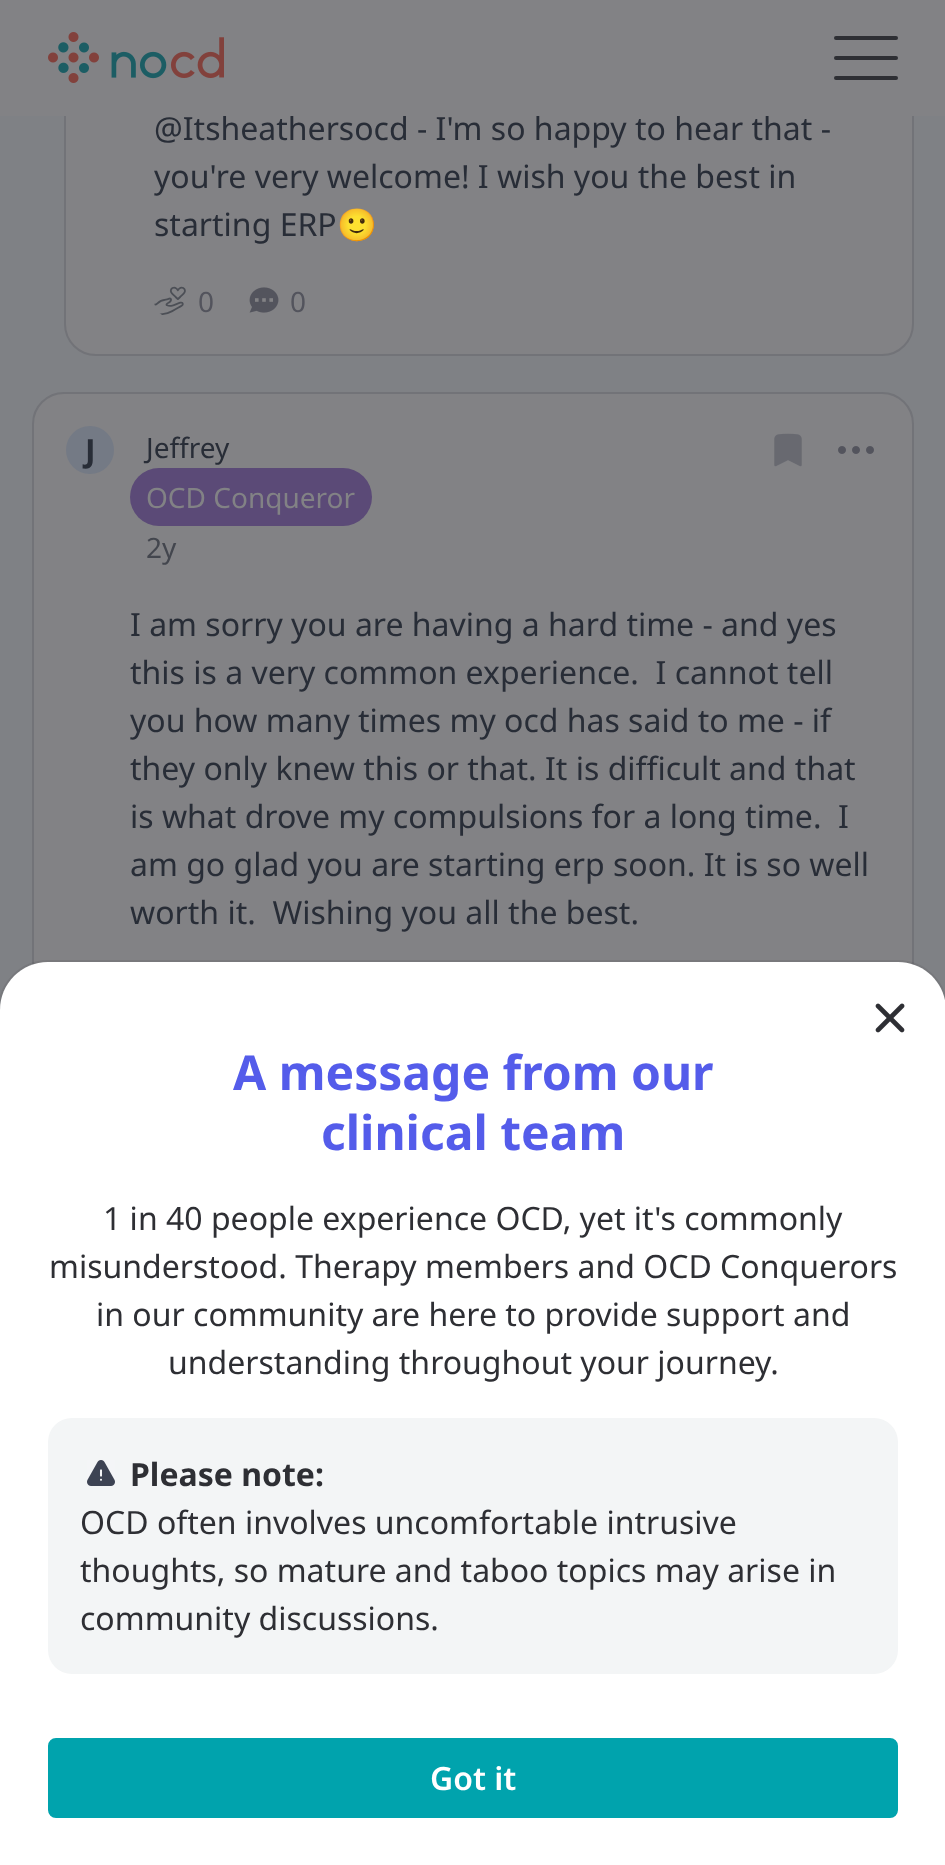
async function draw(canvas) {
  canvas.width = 945;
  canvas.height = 1865;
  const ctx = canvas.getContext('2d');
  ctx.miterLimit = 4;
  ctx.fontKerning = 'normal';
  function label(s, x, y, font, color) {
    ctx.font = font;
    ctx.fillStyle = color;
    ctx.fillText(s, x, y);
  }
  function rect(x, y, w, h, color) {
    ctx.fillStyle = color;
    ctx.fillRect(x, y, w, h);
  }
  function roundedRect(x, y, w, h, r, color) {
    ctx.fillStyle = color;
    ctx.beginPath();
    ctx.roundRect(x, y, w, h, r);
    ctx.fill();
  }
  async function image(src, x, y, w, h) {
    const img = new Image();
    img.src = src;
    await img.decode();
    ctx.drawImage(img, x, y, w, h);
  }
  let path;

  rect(0, 0, 945, 1865, '#7f8185');
  ctx.fillStyle = '#828285';
  ctx.beginPath();
  ctx.roundRect(65, -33, 848, 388, 31);
  ctx.fill();
  ctx.strokeStyle = '#727378';
  ctx.lineWidth = 2;
  ctx.stroke();
  label('@Itsheathersocd - I\'m so happy to hear that -', 154, 140, '32px Noto Sans', '#282d37');
  rect(0, 0, 945, 116, '#828285');
  await image('assets/img1.png', 48, 32, 176, 51);
  roundedRect(834, 36, 64, 4, 2, '#2e2f34');
  roundedRect(834, 56, 64, 4, 2, '#2e2f34');
  roundedRect(834, 76, 64, 4, 2, '#2e2f34');
  label('you\'re very welcome! I wish you the best in', 154, 188, '32px Noto Sans', '#282d37');
  label('starting ERP', 154, 236, '32px Noto Sans', '#282d37');
  label('🙂', 337, 236, '32px Noto Color Emoji', '#282d37');
  await image('assets/img2.png', 154, 286, 32, 29);
  label('0', 198, 312, '28px Noto Sans', '#53545d');
  await image('assets/img3.png', 249, 287, 30, 26);
  label('0', 290, 312, '28px Noto Sans', '#53545d');
  ctx.fillStyle = '#828285';
  ctx.beginPath();
  ctx.roundRect(33, 393, 880, 650, 31);
  ctx.fill();
  ctx.stroke();
  ctx.fillStyle = '#747a85';
  ctx.beginPath();
  ctx.arc(90, 450, 24, 0, 2 * Math.PI);
  ctx.fill();
  label('J', 85, 462, 'bold 32px Noto Sans', '#282d37');
  label('Jeffrey', 146, 458, '28px Noto Sans', '#282d37');
  roundedRect(130, 468, 242, 58, 29, '#5b4a77');
  label('OCD Conqueror', 146, 508, '28px Noto Sans', '#828285');
  label('2y', 146, 558, '28px Noto Sans', '#43464e');
  await image('assets/img4.png', 774, 433, 28, 34);
  await image('assets/img5.png', 838, 446, 36, 8);
  label('I am sorry you are having a hard time - and yes', 130, 636, '32px Noto Sans', '#282d37');
  label('this is a very common experience.  I cannot tell', 130, 684, '32px Noto Sans', '#282d37');
  label('you how many times my ocd has said to me - if', 130, 732, '32px Noto Sans', '#282d37');
  label('they only knew this or that. It is difficult and that', 130, 780, '32px Noto Sans', '#282d37');
  label('is what drove my compulsions for a long time.  I', 130, 828, '32px Noto Sans', '#282d37');
  label('am go glad you are starting erp soon. It is so well', 130, 876, '32px Noto Sans', '#282d37');
  label('worth it.  Wishing you all the best.', 130, 924, '32px Noto Sans', '#282d37');
  path = new Path2D('M48 961H898C925 961 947 983 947 1010V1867H-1V1010C-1 983 21 961 48 961Z');
  ctx.strokeStyle = '#2e2f341a';
  ctx.stroke(path);
  ctx.fillStyle = '#fff';
  path = new Path2D('M48 962H898C924.5 962 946 983.5 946 1010V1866H0V1010C0 983.5 21.5 962 48 962Z');
  ctx.fill(path);
  await image('assets/img6.png', 875, 1003, 30, 30);
  label('A message from our', 233, 1090, 'bold 48px Noto Sans', '#545cea');
  label('clinical team', 321, 1150, 'bold 48px Noto Sans', '#545cea');
  label('1 in 40 people experience OCD, yet it\'s commonly', 103, 1230, '32px Noto Sans', '#2e2f34');
  label('misunderstood. Therapy members and OCD Conquerors', 49, 1278, '32px Noto Sans', '#2e2f34');
  label('in our community are here to provide support and', 96, 1326, '32px Noto Sans', '#2e2f34');
  label('understanding throughout your journey.', 168, 1374, '32px Noto Sans', '#2e2f34');
  roundedRect(48, 1418, 850, 256, 24, '#f3f5f6');
  await image('assets/img7.png', 87, 1460, 28, 26);
  label('Please note:', 130, 1486, 'bold 32px Noto Sans', '#2e2f34');
  label('OCD often involves uncomfortable intrusive', 80, 1534, '32px Noto Sans', '#2e2f34');
  label('thoughts, so mature and taboo topics may arise in', 80, 1582, '32px Noto Sans', '#2e2f34');
  label('community discussions.', 80, 1630, '32px Noto Sans', '#2e2f34');
  ctx.fillStyle = '#00a3ad';
  ctx.beginPath();
  ctx.roundRect(49, 1739, 848, 78, 7);
  ctx.fill();
  ctx.strokeStyle = '#00a3ad';
  ctx.stroke();
  label('Got it', 430, 1790, '600 32px Noto Sans', '#fff');
}

draw(document.querySelector('canvas'));
